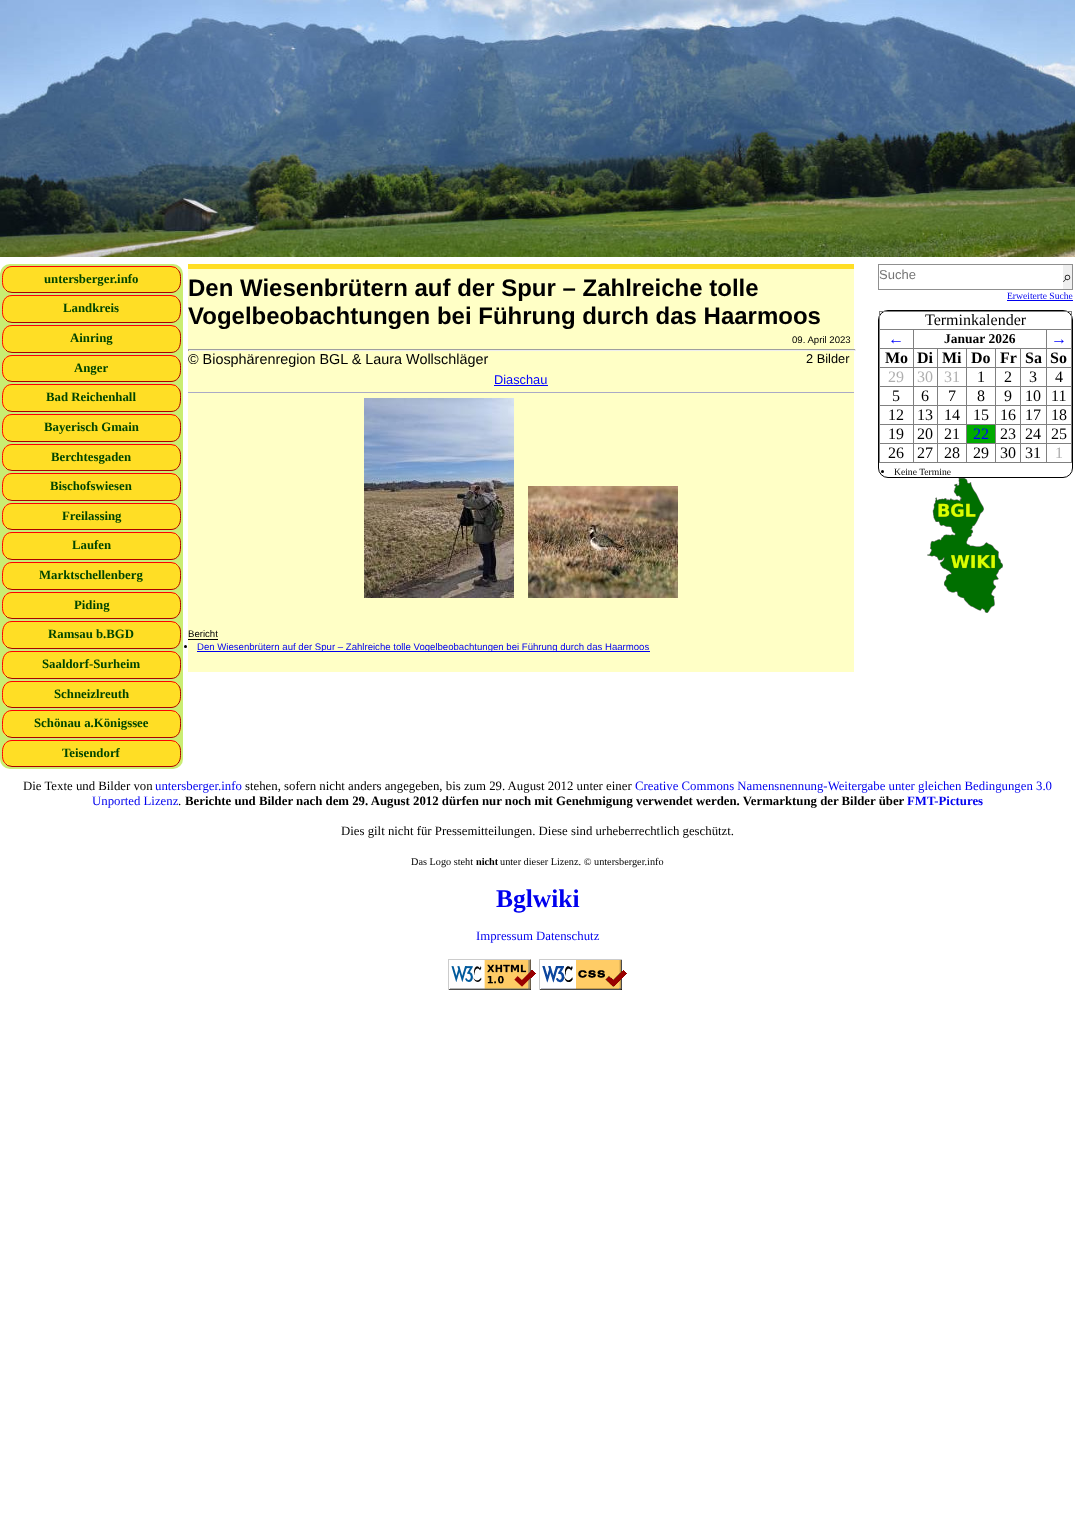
async function draw(canvas) {
  canvas.width = 1075;
  canvas.height = 1523;
  const ctx = canvas.getContext('2d');
  ctx.miterLimit = 4;
  ctx.fontKerning = 'normal';
  function label(s, x, y, font, color) {
    ctx.font = font;
    ctx.fillStyle = color;
    ctx.fillText(s, x, y);
  }
  function rect(x, y, w, h, color) {
    ctx.fillStyle = color;
    ctx.fillRect(x, y, w, h);
  }
  function roundedRect(x, y, w, h, r, color) {
    ctx.fillStyle = color;
    ctx.beginPath();
    ctx.roundRect(x, y, w, h, r);
    ctx.fill();
  }
  async function image(src, x, y, w, h) {
    const img = new Image();
    img.src = src;
    await img.decode();
    ctx.drawImage(img, x, y, w, h);
  }
  let path;

  rect(0, 0, 1075, 1523, '#fff');
  await image('assets/img1.png', 0, 0, 1075, 257);
  roundedRect(0, 264, 183, 505, 10, '#caed72');
  roundedRect(2, 266, 179, 27, 10, '#ffde25');
  path = new Path2D('M177.5 269.5C181 272.5 180.5 277 180.5 281.5C180.5 287.5 177 292.5 171 292.5H12L7.5 291.5L5.5 289.5');
  ctx.strokeStyle = '#a00';
  ctx.stroke(path);
  path = new Path2D('M5.5 289.5C2 286.5 2.5 282 2.5 277.5C2.5 271.5 6 266.5 12 266.5H171L175.5 267.5L177.5 269.5');
  ctx.strokeStyle = '#f00';
  ctx.stroke(path);
  label('untersberger.info', 44, 283, 'bold 12.8px Liberation Serif', '#040');
  roundedRect(2, 295, 179, 28, 10, '#ffde25');
  path = new Path2D('M177.5 298.5C181 301.5 180.5 305.5 180.5 310C180.5 316 178.5 322.5 171 322.5H12L7.5 321.5L5.5 319.5');
  ctx.strokeStyle = '#a00';
  ctx.stroke(path);
  path = new Path2D('M5.5 319.5C2 316.5 2.5 312.5 2.5 308C2.5 302 4.5 295.5 12 295.5H171L175.5 296.5L177.5 298.5');
  ctx.strokeStyle = '#f00';
  ctx.stroke(path);
  label('Landkreis', 63, 312, 'bold 12.8px Liberation Serif', '#040');
  roundedRect(2, 325, 179, 28, 10, '#ffde25');
  path = new Path2D('M177.5 328.5C181 331.5 180.5 335.5 180.5 340C180.5 346 178.5 352.5 171 352.5H12L7.5 351.5L5.5 349.5');
  ctx.strokeStyle = '#a00';
  ctx.stroke(path);
  path = new Path2D('M5.5 349.5C2 346.5 2.5 342.5 2.5 338C2.5 332 4.5 325.5 12 325.5H171L175.5 326.5L177.5 328.5');
  ctx.strokeStyle = '#f00';
  ctx.stroke(path);
  label('Ainring', 70, 342, 'bold 12.8px Liberation Serif', '#040');
  roundedRect(2, 355, 179, 27, 10, '#ffde25');
  path = new Path2D('M177.5 358.5C181 361.5 180.5 366 180.5 370.5C180.5 376.5 177 381.5 171 381.5H12L7.5 380.5L5.5 378.5');
  ctx.strokeStyle = '#a00';
  ctx.stroke(path);
  path = new Path2D('M5.5 378.5C2 375.5 2.5 371 2.5 366.5C2.5 360.5 6 355.5 12 355.5H171L175.5 356.5L177.5 358.5');
  ctx.strokeStyle = '#f00';
  ctx.stroke(path);
  label('Anger', 74, 372, 'bold 12.8px Liberation Serif', '#040');
  roundedRect(2, 384, 179, 28, 10, '#ffde25');
  path = new Path2D('M177.5 387.5C181 390.5 180.5 394.5 180.5 399C180.5 405 178.5 411.5 171 411.5H12L7.5 410.5L5.5 408.5');
  ctx.strokeStyle = '#a00';
  ctx.stroke(path);
  path = new Path2D('M5.5 408.5C2 405.5 2.5 401.5 2.5 397C2.5 391 4.5 384.5 12 384.5H171L175.5 385.5L177.5 387.5');
  ctx.strokeStyle = '#f00';
  ctx.stroke(path);
  label('Bad Reichenhall', 46, 401, 'bold 12.8px Liberation Serif', '#040');
  roundedRect(2, 414, 179, 28, 10, '#ffde25');
  path = new Path2D('M177.5 417.5C181 420.5 180.5 424.5 180.5 429C180.5 435 178.5 441.5 171 441.5H12L7.5 440.5L5.5 438.5');
  ctx.strokeStyle = '#a00';
  ctx.stroke(path);
  path = new Path2D('M5.5 438.5C2 435.5 2.5 431.5 2.5 427C2.5 421 4.5 414.5 12 414.5H171L175.5 415.5L177.5 417.5');
  ctx.strokeStyle = '#f00';
  ctx.stroke(path);
  label('Bayerisch Gmain', 44, 431, 'bold 12.8px Liberation Serif', '#040');
  roundedRect(2, 444, 179, 27, 10, '#ffde25');
  path = new Path2D('M177.5 447.5C181 450.5 180.5 455 180.5 459.5C180.5 465.5 177 470.5 171 470.5H12L7.5 469.5L5.5 467.5');
  ctx.strokeStyle = '#a00';
  ctx.stroke(path);
  path = new Path2D('M5.5 467.5C2 464.5 2.5 460 2.5 455.5C2.5 449.5 6 444.5 12 444.5H171L175.5 445.5L177.5 447.5');
  ctx.strokeStyle = '#f00';
  ctx.stroke(path);
  label('Berchtesgaden', 51, 461, 'bold 12.8px Liberation Serif', '#040');
  roundedRect(2, 473, 179, 28, 10, '#ffde25');
  path = new Path2D('M177.5 476.5C181 479.5 180.5 483.5 180.5 488C180.5 494 178.5 500.5 171 500.5H12L7.5 499.5L5.5 497.5');
  ctx.strokeStyle = '#a00';
  ctx.stroke(path);
  path = new Path2D('M5.5 497.5C2 494.5 2.5 490.5 2.5 486C2.5 480 4.5 473.5 12 473.5H171L175.5 474.5L177.5 476.5');
  ctx.strokeStyle = '#f00';
  ctx.stroke(path);
  label('Bischofswiesen', 50, 490, 'bold 12.8px Liberation Serif', '#040');
  roundedRect(2, 503, 179, 27, 10, '#ffde25');
  path = new Path2D('M177.5 506.5C181 509.5 180.5 514 180.5 518.5C180.5 524.5 177 529.5 171 529.5H12L7.5 528.5L5.5 526.5');
  ctx.strokeStyle = '#a00';
  ctx.stroke(path);
  path = new Path2D('M5.5 526.5C2 523.5 2.5 519 2.5 514.5C2.5 508.5 6 503.5 12 503.5H171L175.5 504.5L177.5 506.5');
  ctx.strokeStyle = '#f00';
  ctx.stroke(path);
  label('Freilassing', 62, 520, 'bold 12.8px Liberation Serif', '#040');
  roundedRect(2, 532, 179, 28, 10, '#ffde25');
  path = new Path2D('M177.5 535.5C181 538.5 180.5 542.5 180.5 547C180.5 553 178.5 559.5 171 559.5H12L7.5 558.5L5.5 556.5');
  ctx.strokeStyle = '#a00';
  ctx.stroke(path);
  path = new Path2D('M5.5 556.5C2 553.5 2.5 549.5 2.5 545C2.5 539 4.5 532.5 12 532.5H171L175.5 533.5L177.5 535.5');
  ctx.strokeStyle = '#f00';
  ctx.stroke(path);
  label('Laufen', 72, 549, 'bold 12.8px Liberation Serif', '#040');
  roundedRect(2, 562, 179, 28, 10, '#ffde25');
  path = new Path2D('M177.5 565.5C181 568.5 180.5 572.5 180.5 577C180.5 583 178.5 589.5 171 589.5H12L7.5 588.5L5.5 586.5');
  ctx.strokeStyle = '#a00';
  ctx.stroke(path);
  path = new Path2D('M5.5 586.5C2 583.5 2.5 579.5 2.5 575C2.5 569 4.5 562.5 12 562.5H171L175.5 563.5L177.5 565.5');
  ctx.strokeStyle = '#f00';
  ctx.stroke(path);
  label('Marktschellenberg', 39, 579, 'bold 12.8px Liberation Serif', '#040');
  roundedRect(2, 592, 179, 27, 10, '#ffde25');
  path = new Path2D('M177.5 595.5C181 598.5 180.5 603 180.5 607.5C180.5 613.5 177 618.5 171 618.5H12L7.5 617.5L5.5 615.5');
  ctx.strokeStyle = '#a00';
  ctx.stroke(path);
  path = new Path2D('M5.5 615.5C2 612.5 2.5 608 2.5 603.5C2.5 597.5 6 592.5 12 592.5H171L175.5 593.5L177.5 595.5');
  ctx.strokeStyle = '#f00';
  ctx.stroke(path);
  label('Piding', 74, 609, 'bold 12.8px Liberation Serif', '#040');
  roundedRect(2, 621, 179, 28, 10, '#ffde25');
  path = new Path2D('M177.5 624.5C181 627.5 180.5 631.5 180.5 636C180.5 642 178.5 648.5 171 648.5H12L7.5 647.5L5.5 645.5');
  ctx.strokeStyle = '#a00';
  ctx.stroke(path);
  path = new Path2D('M5.5 645.5C2 642.5 2.5 638.5 2.5 634C2.5 628 4.5 621.5 12 621.5H171L175.5 622.5L177.5 624.5');
  ctx.strokeStyle = '#f00';
  ctx.stroke(path);
  label('Ramsau b.BGD', 48, 638, 'bold 12.8px Liberation Serif', '#040');
  roundedRect(2, 651, 179, 28, 10, '#ffde25');
  path = new Path2D('M177.5 654.5C181 657.5 180.5 661.5 180.5 666C180.5 672 178.5 678.5 171 678.5H12L7.5 677.5L5.5 675.5');
  ctx.strokeStyle = '#a00';
  ctx.stroke(path);
  path = new Path2D('M5.5 675.5C2 672.5 2.5 668.5 2.5 664C2.5 658 4.5 651.5 12 651.5H171L175.5 652.5L177.5 654.5');
  ctx.strokeStyle = '#f00';
  ctx.stroke(path);
  label('Saaldorf-Surheim', 42, 668, 'bold 12.8px Liberation Serif', '#040');
  roundedRect(2, 681, 179, 27, 10, '#ffde25');
  path = new Path2D('M177.5 684.5C181 687.5 180.5 692 180.5 696.5C180.5 702.5 177 707.5 171 707.5H12L7.5 706.5L5.5 704.5');
  ctx.strokeStyle = '#a00';
  ctx.stroke(path);
  path = new Path2D('M5.5 704.5C2 701.5 2.5 697 2.5 692.5C2.5 686.5 6 681.5 12 681.5H171L175.5 682.5L177.5 684.5');
  ctx.strokeStyle = '#f00';
  ctx.stroke(path);
  label('Schneizlreuth', 54, 698, 'bold 12.8px Liberation Serif', '#040');
  roundedRect(2, 710, 179, 28, 10, '#ffde25');
  path = new Path2D('M177.5 713.5C181 716.5 180.5 720.5 180.5 725C180.5 731 178.5 737.5 171 737.5H12L7.5 736.5L5.5 734.5');
  ctx.strokeStyle = '#a00';
  ctx.stroke(path);
  path = new Path2D('M5.5 734.5C2 731.5 2.5 727.5 2.5 723C2.5 717 4.5 710.5 12 710.5H171L175.5 711.5L177.5 713.5');
  ctx.strokeStyle = '#f00';
  ctx.stroke(path);
  label('Schönau a.Königssee', 34, 727, 'bold 12.8px Liberation Serif', '#040');
  roundedRect(2, 740, 179, 27, 10, '#ffde25');
  path = new Path2D('M177.5 743.5C181 746.5 180.5 751 180.5 755.5C180.5 761.5 177 766.5 171 766.5H12L7.5 765.5L5.5 763.5');
  ctx.strokeStyle = '#a00';
  ctx.stroke(path);
  path = new Path2D('M5.5 763.5C2 760.5 2.5 756 2.5 751.5C2.5 745.5 6 740.5 12 740.5H171L175.5 741.5L177.5 743.5');
  ctx.strokeStyle = '#f00';
  ctx.stroke(path);
  label('Teisendorf', 62, 757, 'bold 12.8px Liberation Serif', '#040');
  rect(188, 264, 666, 5, '#ffde25');
  rect(188, 269, 666, 403, '#ffffc6');
  rect(188, 392, 666, 1, '#aaaac6');
  label('Den Wiesenbrütern auf der Spur – Zahlreiche tolle', 188, 296, 'bold 24px Liberation Sans', '#000');
  label('Vogelbeobachtungen bei Führung durch das Haarmoos', 188, 324, 'bold 24px Liberation Sans', '#000');
  label('09. April 2023', 792, 343, '9.6px Liberation Sans', '#000');
  rect(188, 349, 668, 1, '#9f9f9f');
  rect(855, 349, 1, 2, '#eee');
  rect(188, 350, 668, 1, '#eee');
  rect(188, 349, 1, 2, '#9f9f9f');
  label('© Biosphärenregion BGL & Laura Wollschläger', 188, 364, '14.4px Liberation Sans', '#000');
  label('2 Bilder', 806, 363, '12.8px Liberation Sans', '#000');
  label('Diaschau', 494, 384, '12.8px Liberation Sans', '#00f');
  rect(494, 385, 54, 1, '#00f');
  await image('assets/img2.png', 364, 398, 150, 200);
  await image('assets/img3.png', 528, 486, 150, 112);
  label('Bericht', 188, 637, '9.6px Liberation Sans', '#000');
  rect(188, 639, 30, 1, '#000');
  ctx.beginPath();
  ctx.arc(185.5, 646.5, 1.5, 0, 2 * Math.PI);
  ctx.fill();
  rect(197, 651, 453, 1, '#00e');
  label('Den Wiesenbrütern auf der Spur – Zahlreiche tolle Vogelbeobachtungen bei Führung durch das Haarmoos', 197, 650, '9.6px Liberation Sans', '#00e');
  ctx.strokeStyle = '#8f8f8f';
  ctx.strokeRect(878.5, 264.5, 194, 25);
  label('Suche', 879, 279, '13px Liberation Sans', '#757575');
  rect(1063, 265, 9, 24, '#efefef');
  label('⌕', 1063, 282, '16px FreeSerif', '#000');
  label('Erweiterte Suche', 1007, 299, '9.6px Liberation Serif', '#00e');
  rect(1007, 300, 66, 1, '#00e');
  ctx.beginPath();
  ctx.roundRect(878.5, 310.5, 194, 167, 9.5);
  ctx.strokeStyle = '#000';
  ctx.stroke();
  rect(879, 311, 193, 1, '#808080');
  rect(1071, 311, 1, 152, '#808080');
  rect(879, 462, 193, 1, '#808080');
  rect(879, 311, 1, 152, '#808080');
  label('Terminkalender', 925, 325, '16px Liberation Serif', '#000');
  rect(1046, 329, 26, 1, '#808080');
  rect(1046, 348, 26, 1, '#808080');
  rect(1046, 367, 26, 1, '#808080');
  rect(1046, 386, 26, 1, '#808080');
  rect(1046, 405, 26, 1, '#808080');
  rect(1046, 424, 26, 1, '#808080');
  rect(1046, 443, 26, 1, '#808080');
  rect(1046, 443, 1, 20, '#808080');
  rect(1020, 443, 27, 1, '#808080');
  rect(1046, 424, 1, 20, '#808080');
  rect(1020, 424, 27, 1, '#808080');
  rect(1046, 405, 1, 20, '#808080');
  rect(1020, 405, 27, 1, '#808080');
  rect(1046, 386, 1, 20, '#808080');
  rect(1020, 386, 27, 1, '#808080');
  rect(1046, 367, 1, 20, '#808080');
  rect(1020, 367, 27, 1, '#808080');
  rect(1046, 348, 1, 20, '#808080');
  rect(1020, 348, 27, 1, '#808080');
  rect(1046, 329, 1, 20, '#808080');
  rect(913, 329, 134, 1, '#808080');
  rect(1020, 443, 1, 20, '#808080');
  rect(995, 443, 26, 1, '#808080');
  rect(1020, 424, 1, 20, '#808080');
  rect(995, 424, 26, 1, '#808080');
  rect(1020, 405, 1, 20, '#808080');
  rect(995, 405, 26, 1, '#808080');
  rect(1020, 386, 1, 20, '#808080');
  rect(995, 386, 26, 1, '#808080');
  rect(1020, 367, 1, 20, '#808080');
  rect(995, 367, 26, 1, '#808080');
  rect(1020, 348, 1, 20, '#808080');
  rect(995, 348, 26, 1, '#808080');
  rect(995, 443, 1, 20, '#808080');
  rect(966, 443, 30, 1, '#808080');
  rect(995, 424, 1, 20, '#808080');
  rect(966, 424, 30, 1, '#808080');
  rect(995, 405, 1, 20, '#808080');
  rect(966, 405, 30, 1, '#808080');
  rect(995, 386, 1, 20, '#808080');
  rect(966, 386, 30, 1, '#808080');
  rect(995, 367, 1, 20, '#808080');
  rect(966, 367, 30, 1, '#808080');
  rect(995, 348, 1, 20, '#808080');
  rect(966, 348, 30, 1, '#808080');
  rect(966, 443, 1, 20, '#808080');
  rect(937, 443, 30, 1, '#808080');
  rect(966, 424, 1, 20, '#808080');
  rect(937, 424, 30, 1, '#808080');
  rect(966, 405, 1, 20, '#808080');
  rect(937, 405, 30, 1, '#808080');
  rect(966, 386, 1, 20, '#808080');
  rect(937, 386, 30, 1, '#808080');
  rect(966, 367, 1, 20, '#808080');
  rect(937, 367, 30, 1, '#808080');
  rect(966, 348, 1, 20, '#808080');
  rect(937, 348, 30, 1, '#808080');
  rect(937, 443, 1, 20, '#808080');
  rect(913, 443, 25, 1, '#808080');
  rect(937, 424, 1, 20, '#808080');
  rect(913, 424, 25, 1, '#808080');
  rect(937, 405, 1, 20, '#808080');
  rect(913, 405, 25, 1, '#808080');
  rect(937, 386, 1, 20, '#808080');
  rect(913, 386, 25, 1, '#808080');
  rect(937, 367, 1, 20, '#808080');
  rect(913, 367, 25, 1, '#808080');
  rect(937, 348, 1, 20, '#808080');
  rect(913, 348, 25, 1, '#808080');
  rect(913, 443, 1, 20, '#808080');
  rect(879, 443, 35, 1, '#808080');
  rect(913, 424, 1, 20, '#808080');
  rect(879, 424, 35, 1, '#808080');
  rect(913, 405, 1, 20, '#808080');
  rect(879, 405, 35, 1, '#808080');
  rect(913, 386, 1, 20, '#808080');
  rect(879, 386, 35, 1, '#808080');
  rect(913, 367, 1, 20, '#808080');
  rect(879, 367, 35, 1, '#808080');
  rect(913, 348, 1, 20, '#808080');
  rect(879, 348, 35, 1, '#808080');
  rect(913, 329, 1, 20, '#808080');
  rect(879, 329, 35, 1, '#808080');
  label('←', 888, 344, 'bold 16px Liberation Serif', '#00f');
  label('Januar 2026', 944, 343, 'bold 13.5px Liberation Serif', '#000');
  label('→', 1051, 344, 'bold 16px Liberation Serif', '#00f');
  label('Mo', 885, 363, 'bold 16px Liberation Serif', '#000');
  label('Di', 917, 363, 'bold 16px Liberation Serif', '#000');
  label('Mi', 942, 363, 'bold 16px Liberation Serif', '#000');
  label('Do', 971, 363, 'bold 16px Liberation Serif', '#000');
  label('Fr', 1000, 363, 'bold 16px Liberation Serif', '#000');
  label('Sa', 1025, 363, 'bold 16px Liberation Serif', '#000');
  label('So', 1050, 363, 'bold 16px Liberation Serif', '#000');
  label('29', 888, 382, '16px Liberation Serif', '#afafaf');
  label('30', 917, 382, '16px Liberation Serif', '#afafaf');
  label('31', 944, 382, '16px Liberation Serif', '#afafaf');
  label('1', 977, 382, '16px Liberation Serif', '#000');
  label('2', 1004, 382, '16px Liberation Serif', '#000');
  label('3', 1029, 382, '16px Liberation Serif', '#000');
  label('4', 1055, 382, '16px Liberation Serif', '#000');
  label('5', 892, 401, '16px Liberation Serif', '#000');
  label('6', 921, 401, '16px Liberation Serif', '#000');
  label('7', 948, 401, '16px Liberation Serif', '#000');
  label('8', 977, 401, '16px Liberation Serif', '#000');
  label('9', 1004, 401, '16px Liberation Serif', '#000');
  label('10', 1025, 401, '16px Liberation Serif', '#000');
  label('11', 1051, 401, '16px Liberation Serif', '#000');
  label('12', 888, 420, '16px Liberation Serif', '#000');
  label('13', 917, 420, '16px Liberation Serif', '#000');
  label('14', 944, 420, '16px Liberation Serif', '#000');
  label('15', 973, 420, '16px Liberation Serif', '#000');
  label('16', 1000, 420, '16px Liberation Serif', '#000');
  label('17', 1025, 420, '16px Liberation Serif', '#000');
  label('18', 1051, 420, '16px Liberation Serif', '#000');
  label('19', 888, 439, '16px Liberation Serif', '#000');
  label('20', 917, 439, '16px Liberation Serif', '#000');
  label('21', 944, 439, '16px Liberation Serif', '#000');
  rect(967, 425, 28, 18, '#0a0');
  label('22', 973, 439, '16px Liberation Serif', '#00f');
  label('23', 1000, 439, '16px Liberation Serif', '#000');
  label('24', 1025, 439, '16px Liberation Serif', '#000');
  label('25', 1051, 439, '16px Liberation Serif', '#000');
  label('26', 888, 458, '16px Liberation Serif', '#000');
  label('27', 917, 458, '16px Liberation Serif', '#000');
  label('28', 944, 458, '16px Liberation Serif', '#000');
  label('29', 973, 458, '16px Liberation Serif', '#000');
  label('30', 1000, 458, '16px Liberation Serif', '#000');
  label('31', 1025, 458, '16px Liberation Serif', '#000');
  label('1', 1055, 458, '16px Liberation Serif', '#afafaf');
  ctx.fillStyle = '#000';
  ctx.beginPath();
  ctx.arc(882.5, 471.5, 1.5, 0, 2 * Math.PI);
  ctx.fill();
  label('Keine Termine', 894, 475, '9.6px Liberation Serif', '#000');
  await image('assets/img4.png', 927, 478, 76, 135);
  label('Die Texte und Bilder von', 23, 790, '12.8px Liberation Serif', '#000');
  label('untersberger.info', 155, 790, '12.8px Liberation Serif', '#00e');
  label('stehen, sofern nicht anders angegeben, bis zum 29. August 2012 unter einer', 245, 790, '12.8px Liberation Serif', '#000');
  label('Creative Commons Namensnennung-Weitergabe unter gleichen Bedingungen 3.0', 635, 790, '12.8px Liberation Serif', '#00e');
  label('Unported Lizenz', 92, 805, '12.8px Liberation Serif', '#00e');
  label('.', 178, 805, '12.8px Liberation Serif', '#000');
  label('Berichte und Bilder nach dem 29. August 2012 dürfen nur noch mit Genehmigung verwendet werden. Vermarktung der Bilder über', 185, 805, 'bold 12.8px Liberation Serif', '#000');
  label('FMT-Pictures', 907, 805, 'bold 12.8px Liberation Serif', '#00e');
  label('Dies gilt nicht für Pressemitteilungen. Diese sind urheberrechtlich geschützt.', 341, 835, '12.8px Liberation Serif', '#000');
  label('Das Logo steht', 411, 865, '10.25px Liberation Serif', '#000');
  label('nicht', 476, 865, 'bold 10.25px Liberation Serif', '#000');
  label('unter dieser Lizenz. © untersberger.info', 500, 865, '10.25px Liberation Serif', '#000');
  label('Bglwiki', 496, 907, 'bold 25.5px Liberation Serif', '#00e');
  label('Impressum Datenschutz', 476, 940, '12.8px Liberation Serif', '#00e');
  await image('assets/img5.png', 448, 959, 88, 31);
  await image('assets/img6.png', 539, 959, 88, 31);
}

draw(document.querySelector('canvas'));
